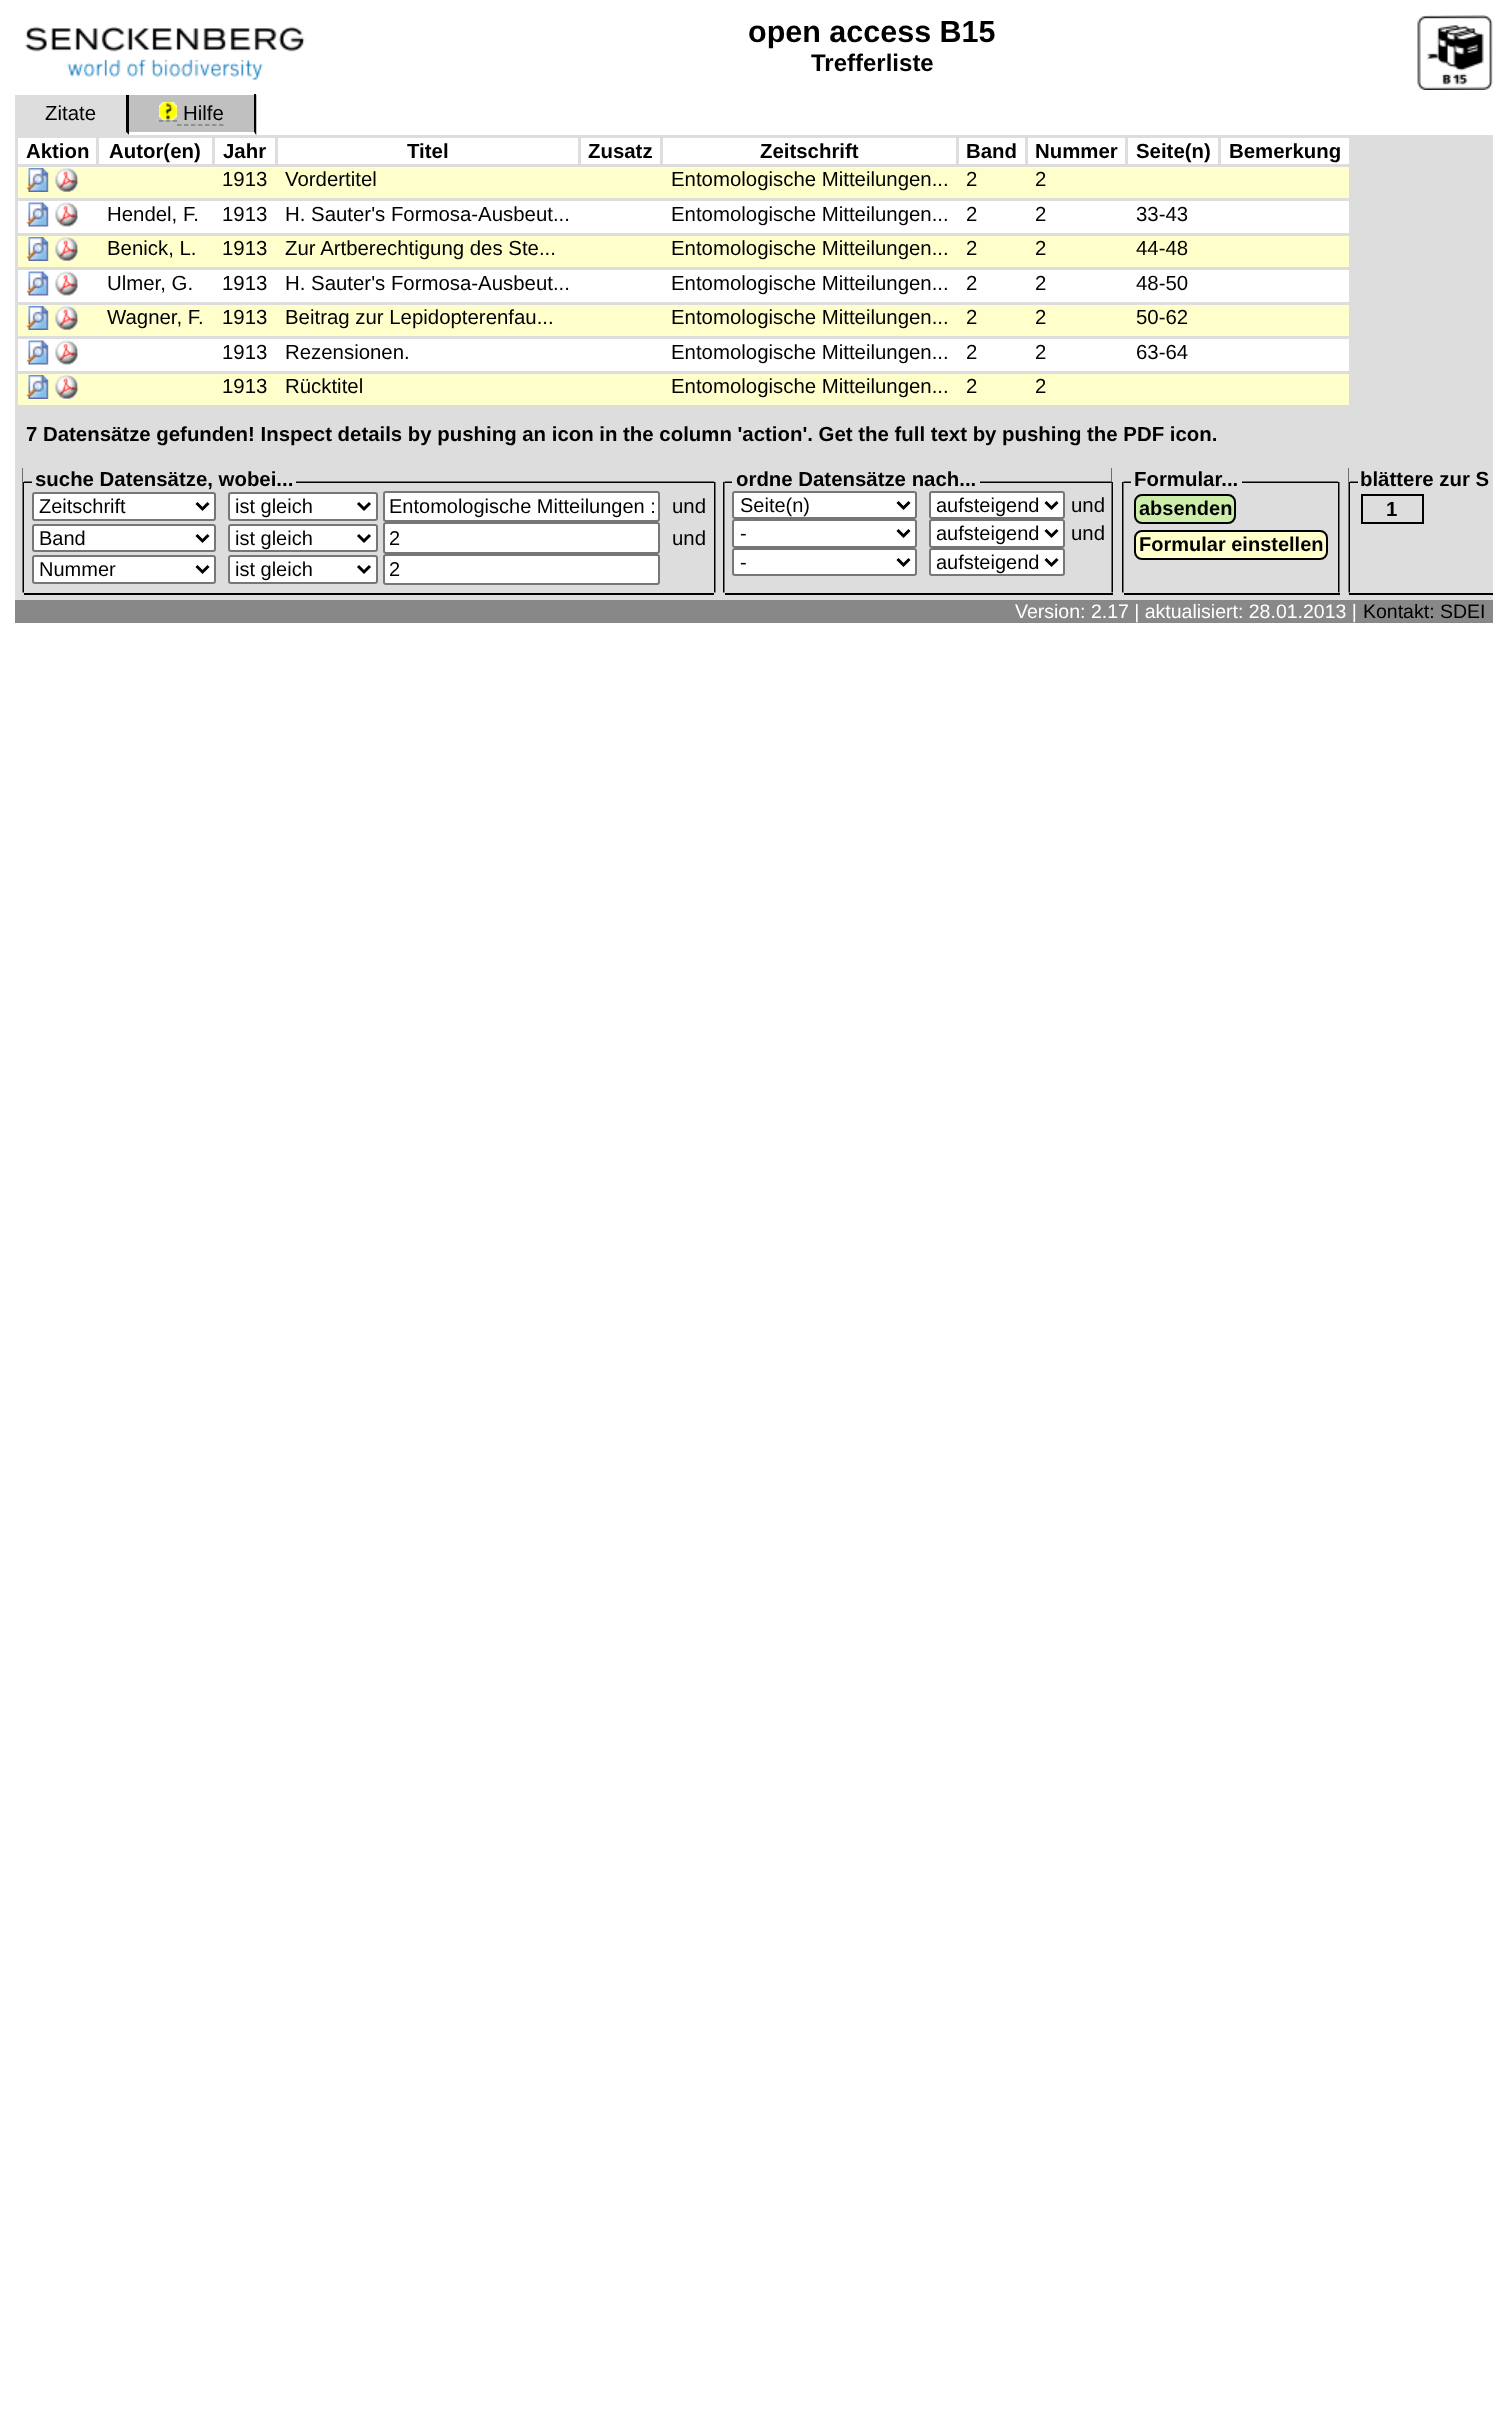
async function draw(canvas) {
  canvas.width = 1507;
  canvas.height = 2431;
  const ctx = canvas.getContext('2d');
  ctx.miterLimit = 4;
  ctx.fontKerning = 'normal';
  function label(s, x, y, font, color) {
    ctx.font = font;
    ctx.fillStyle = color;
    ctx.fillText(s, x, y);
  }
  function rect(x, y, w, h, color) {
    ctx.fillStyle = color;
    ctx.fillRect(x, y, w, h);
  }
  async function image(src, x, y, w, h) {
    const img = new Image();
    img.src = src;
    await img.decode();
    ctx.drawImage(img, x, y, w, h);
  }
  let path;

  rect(0, 0, 1507, 2431, '#fff');
  await image('assets/img1.png', 25, 26, 280, 54);
  label('open access B15', 748, 42, 'bold 30.5px Liberation Sans', '#000');
  label('Trefferliste', 811, 71, 'bold 24px Liberation Sans', '#000');
  await image('assets/img2.png', 1417, 15, 76, 75);
  rect(15, 95, 114, 40, '#ddd');
  ctx.save();
  ctx.beginPath();
  ctx.rect(15, 95, 1478, 40);
  ctx.clip();
  ctx.fillStyle = '#000';
  path = new Path2D('M129 94V135L126 132V94Z');
  ctx.fill(path);
  ctx.restore();
  path = new Path2D('M129 135H15V132H126Z');
  ctx.fill(path);
  label('Zitate', 45, 120, '20.4px Liberation Sans', '#000');
  rect(129, 95, 128, 40, '#c0c0c0');
  ctx.fillStyle = '#000';
  path = new Path2D('M256 94V135L254 132V94Z');
  ctx.fill(path);
  ctx.fillStyle = '#fff';
  path = new Path2D('M256 135H129V132H254Z');
  ctx.fill(path);
  await image('assets/img3.png', 159, 102, 18, 18);
  label('Hilfe', 183, 120, '20.4px Liberation Sans', '#000');
  path = new Path2D('M159 121H163.5M166 121H170M172.5 121H177');
  ctx.strokeStyle = '#808080';
  ctx.lineWidth = 1.5;
  ctx.stroke(path);
  path = new Path2D('M177 125H223.5');
  ctx.setLineDash([4.5, 2.5]);
  ctx.stroke(path);
  rect(15, 135, 1478, 465, '#ddd');
  rect(18, 138, 78, 26, '#fff');
  label('Aktion', 26, 158, 'bold 20.4px Liberation Sans', '#000');
  rect(99, 138, 113, 26, '#fff');
  label('Autor(en)', 109, 158, 'bold 20.4px Liberation Sans', '#000');
  rect(215, 138, 60, 26, '#fff');
  label('Jahr', 223, 158, 'bold 20.4px Liberation Sans', '#000');
  rect(278, 138, 300, 26, '#fff');
  label('Titel', 407, 158, 'bold 20.4px Liberation Sans', '#000');
  rect(581, 138, 79, 26, '#fff');
  label('Zusatz', 588, 158, 'bold 20.4px Liberation Sans', '#000');
  rect(663, 138, 293, 26, '#fff');
  label('Zeitschrift', 760, 158, 'bold 20.4px Liberation Sans', '#000');
  rect(959, 138, 66, 26, '#fff');
  label('Band', 966, 158, 'bold 20.4px Liberation Sans', '#000');
  rect(1028, 138, 97, 26, '#fff');
  label('Nummer', 1035, 158, 'bold 20.4px Liberation Sans', '#000');
  rect(1128, 138, 90, 26, '#fff');
  label('Seite(n)', 1136, 158, 'bold 20.4px Liberation Sans', '#000');
  rect(1221, 138, 128, 26, '#fff');
  label('Bemerkung', 1229, 158, 'bold 20.4px Liberation Sans', '#000');
  rect(18, 167, 1331, 31, '#ffc');
  await image('assets/img4.png', 26, 168, 23, 24);
  await image('assets/img5.png', 55, 168, 23, 24);
  label('1913', 222, 186, '20.4px Liberation Sans', '#000');
  label('Vordertitel', 285, 186, '20.4px Liberation Sans', '#000');
  label('Entomologische Mitteilungen...', 671, 186, '20.4px Liberation Sans', '#000');
  label('2', 966, 186, '20.4px Liberation Sans', '#000');
  label('2', 1035, 186, '20.4px Liberation Sans', '#000');
  rect(18, 201, 1331, 32, '#fff');
  await image('assets/img6.png', 26, 202, 23, 25);
  await image('assets/img7.png', 55, 202, 23, 25);
  label('Hendel, F.', 107, 221, '20.4px Liberation Sans', '#000');
  label('1913', 222, 221, '20.4px Liberation Sans', '#000');
  label('H. Sauter\'s Formosa-Ausbeut...', 285, 221, '20.4px Liberation Sans', '#000');
  label('Entomologische Mitteilungen...', 671, 221, '20.4px Liberation Sans', '#000');
  label('2', 966, 221, '20.4px Liberation Sans', '#000');
  label('2', 1035, 221, '20.4px Liberation Sans', '#000');
  label('33-43', 1136, 221, '20.4px Liberation Sans', '#000');
  rect(18, 236, 1331, 31, '#ffc');
  await image('assets/img4.png', 26, 237, 23, 24);
  await image('assets/img5.png', 55, 237, 23, 24);
  label('Benick, L.', 107, 255, '20.4px Liberation Sans', '#000');
  label('1913', 222, 255, '20.4px Liberation Sans', '#000');
  label('Zur Artberechtigung des Ste...', 285, 255, '20.4px Liberation Sans', '#000');
  label('Entomologische Mitteilungen...', 671, 255, '20.4px Liberation Sans', '#000');
  label('2', 966, 255, '20.4px Liberation Sans', '#000');
  label('2', 1035, 255, '20.4px Liberation Sans', '#000');
  label('44-48', 1136, 255, '20.4px Liberation Sans', '#000');
  rect(18, 270, 1331, 32, '#fff');
  await image('assets/img6.png', 26, 271, 23, 25);
  await image('assets/img8.png', 55, 271, 23, 25);
  label('Ulmer, G.', 107, 290, '20.4px Liberation Sans', '#000');
  label('1913', 222, 290, '20.4px Liberation Sans', '#000');
  label('H. Sauter\'s Formosa-Ausbeut...', 285, 290, '20.4px Liberation Sans', '#000');
  label('Entomologische Mitteilungen...', 671, 290, '20.4px Liberation Sans', '#000');
  label('2', 966, 290, '20.4px Liberation Sans', '#000');
  label('2', 1035, 290, '20.4px Liberation Sans', '#000');
  label('48-50', 1136, 290, '20.4px Liberation Sans', '#000');
  rect(18, 305, 1331, 31, '#ffc');
  await image('assets/img4.png', 26, 306, 23, 24);
  await image('assets/img5.png', 55, 306, 23, 24);
  label('Wagner, F.', 107, 324, '20.4px Liberation Sans', '#000');
  label('1913', 222, 324, '20.4px Liberation Sans', '#000');
  label('Beitrag zur Lepidopterenfau...', 285, 324, '20.4px Liberation Sans', '#000');
  label('Entomologische Mitteilungen...', 671, 324, '20.4px Liberation Sans', '#000');
  label('2', 966, 324, '20.4px Liberation Sans', '#000');
  label('2', 1035, 324, '20.4px Liberation Sans', '#000');
  label('50-62', 1136, 324, '20.4px Liberation Sans', '#000');
  rect(18, 339, 1331, 32, '#fff');
  await image('assets/img6.png', 26, 340, 23, 25);
  await image('assets/img7.png', 55, 340, 23, 25);
  label('1913', 222, 359, '20.4px Liberation Sans', '#000');
  label('Rezensionen.', 285, 359, '20.4px Liberation Sans', '#000');
  label('Entomologische Mitteilungen...', 671, 359, '20.4px Liberation Sans', '#000');
  label('2', 966, 359, '20.4px Liberation Sans', '#000');
  label('2', 1035, 359, '20.4px Liberation Sans', '#000');
  label('63-64', 1136, 359, '20.4px Liberation Sans', '#000');
  rect(18, 374, 1331, 31, '#ffc');
  await image('assets/img4.png', 26, 375, 23, 24);
  await image('assets/img5.png', 55, 375, 23, 24);
  label('1913', 222, 393, '20.4px Liberation Sans', '#000');
  label('Rücktitel', 285, 393, '20.4px Liberation Sans', '#000');
  label('Entomologische Mitteilungen...', 671, 393, '20.4px Liberation Sans', '#000');
  label('2', 966, 393, '20.4px Liberation Sans', '#000');
  label('2', 1035, 393, '20.4px Liberation Sans', '#000');
  label('7 Datensätze gefunden! Inspect details by pushing an icon in the column \'action\'. Get the full text by pushing the PDF icon.', 26, 441, 'bold 20.4px Liberation Sans', '#000');
  await image('assets/img9.png', 22, 468, 2, 125);
  rect(23, 468, 1, 14, '#ddd');
  await image('assets/img10.png', 24, 481, 690, 2);
  rect(24, 593, 690, 2, '#000');
  rect(32, 481, 264, 2, '#ddd');
  label('suche Datensätze, wobei...', 35, 486, 'bold 20.4px Liberation Sans', '#000');
  ctx.fillStyle = '#fff';
  ctx.beginPath();
  ctx.roundRect(33, 493, 182, 27, 2);
  ctx.fill();
  ctx.strokeStyle = '#767676';
  ctx.lineWidth = 2;
  ctx.setLineDash([]);
  ctx.stroke();
  path = new Path2D('M196.5 503L202.5 509L208.5 503');
  ctx.strokeStyle = '#000';
  ctx.lineWidth = 3;
  ctx.stroke(path);
  label('Zeitschrift', 39, 513, '20px Liberation Sans', '#000');
  ctx.fillStyle = '#fff';
  ctx.beginPath();
  ctx.roundRect(229, 493, 148, 27, 2);
  ctx.fill();
  ctx.strokeStyle = '#767676';
  ctx.lineWidth = 2;
  ctx.stroke();
  path = new Path2D('M358 503L364 509L370 503');
  ctx.strokeStyle = '#000';
  ctx.lineWidth = 3;
  ctx.stroke(path);
  label('ist gleich', 235, 513, '20px Liberation Sans', '#000');
  ctx.fillStyle = '#fff';
  ctx.beginPath();
  ctx.roundRect(384, 492, 275, 29, 2);
  ctx.fill();
  ctx.strokeStyle = '#767676';
  ctx.lineWidth = 2;
  ctx.stroke();
  label('Entomologische Mitteilungen :', 389, 513, '20px Liberation Sans', '#000');
  label('und', 672, 513, '20.4px Liberation Sans', '#000');
  ctx.fillStyle = '#fff';
  ctx.beginPath();
  ctx.roundRect(33, 525, 182, 26, 2);
  ctx.fill();
  ctx.stroke();
  path = new Path2D('M196.5 535L202.5 541L208.5 535');
  ctx.strokeStyle = '#000';
  ctx.lineWidth = 3;
  ctx.stroke(path);
  label('Band', 39, 545, '20px Liberation Sans', '#000');
  ctx.fillStyle = '#fff';
  ctx.beginPath();
  ctx.roundRect(229, 525, 148, 26, 2);
  ctx.fill();
  ctx.strokeStyle = '#767676';
  ctx.lineWidth = 2;
  ctx.stroke();
  path = new Path2D('M358 535L364 541L370 535');
  ctx.strokeStyle = '#000';
  ctx.lineWidth = 3;
  ctx.stroke(path);
  label('ist gleich', 235, 545, '20px Liberation Sans', '#000');
  ctx.fillStyle = '#fff';
  ctx.beginPath();
  ctx.roundRect(384, 523, 275, 30, 2);
  ctx.fill();
  ctx.strokeStyle = '#767676';
  ctx.lineWidth = 2;
  ctx.stroke();
  label('2', 389, 545, '20px Liberation Sans', '#000');
  label('und', 672, 545, '20.4px Liberation Sans', '#000');
  ctx.fillStyle = '#fff';
  ctx.beginPath();
  ctx.roundRect(33, 556, 182, 27, 2);
  ctx.fill();
  ctx.stroke();
  path = new Path2D('M196.5 566L202.5 572L208.5 566');
  ctx.strokeStyle = '#000';
  ctx.lineWidth = 3;
  ctx.stroke(path);
  label('Nummer', 39, 576, '20px Liberation Sans', '#000');
  ctx.fillStyle = '#fff';
  ctx.beginPath();
  ctx.roundRect(229, 556, 148, 27, 2);
  ctx.fill();
  ctx.strokeStyle = '#767676';
  ctx.lineWidth = 2;
  ctx.stroke();
  path = new Path2D('M358 566L364 572L370 566');
  ctx.strokeStyle = '#000';
  ctx.lineWidth = 3;
  ctx.stroke(path);
  label('ist gleich', 235, 576, '20px Liberation Sans', '#000');
  ctx.fillStyle = '#fff';
  ctx.beginPath();
  ctx.roundRect(384, 555, 275, 29, 2);
  ctx.fill();
  ctx.strokeStyle = '#767676';
  ctx.lineWidth = 2;
  ctx.stroke();
  label('2', 389, 576, '20px Liberation Sans', '#000');
  await image('assets/img11.png', 714, 482, 2, 111);
  await image('assets/img11.png', 723, 482, 2, 111);
  await image('assets/img12.png', 724, 481, 388, 2);
  rect(725, 593, 388, 2, '#000');
  rect(732, 481, 248, 2, '#ddd');
  label('ordne Datensätze nach...', 736, 486, 'bold 20.4px Liberation Sans', '#000');
  ctx.fillStyle = '#fff';
  ctx.beginPath();
  ctx.roundRect(733, 492, 183, 26, 2);
  ctx.fill();
  ctx.stroke();
  path = new Path2D('M897.5 502L903.5 508L909.5 502');
  ctx.strokeStyle = '#000';
  ctx.lineWidth = 3;
  ctx.stroke(path);
  label('Seite(n)', 740, 512, '20px Liberation Sans', '#000');
  ctx.fillStyle = '#fff';
  ctx.beginPath();
  ctx.roundRect(930, 492, 134, 26, 2);
  ctx.fill();
  ctx.strokeStyle = '#767676';
  ctx.lineWidth = 2;
  ctx.stroke();
  path = new Path2D('M1045.5 502L1051.5 508L1057.5 502');
  ctx.strokeStyle = '#000';
  ctx.lineWidth = 3;
  ctx.stroke(path);
  label('aufsteigend', 936, 512, '20px Liberation Sans', '#000');
  label('und', 1071, 512, '20.4px Liberation Sans', '#000');
  ctx.fillStyle = '#fff';
  ctx.beginPath();
  ctx.roundRect(733, 520, 183, 27, 2);
  ctx.fill();
  ctx.strokeStyle = '#767676';
  ctx.lineWidth = 2;
  ctx.stroke();
  path = new Path2D('M897.5 530L903.5 536L909.5 530');
  ctx.strokeStyle = '#000';
  ctx.lineWidth = 3;
  ctx.stroke(path);
  label('-', 740, 540, '20px Liberation Sans', '#000');
  ctx.fillStyle = '#fff';
  ctx.beginPath();
  ctx.roundRect(930, 520, 134, 27, 2);
  ctx.fill();
  ctx.strokeStyle = '#767676';
  ctx.lineWidth = 2;
  ctx.stroke();
  path = new Path2D('M1045.5 530L1051.5 536L1057.5 530');
  ctx.strokeStyle = '#000';
  ctx.lineWidth = 3;
  ctx.stroke(path);
  label('aufsteigend', 936, 540, '20px Liberation Sans', '#000');
  label('und', 1071, 540, '20.4px Liberation Sans', '#000');
  ctx.fillStyle = '#fff';
  ctx.beginPath();
  ctx.roundRect(733, 549, 183, 26, 2);
  ctx.fill();
  ctx.strokeStyle = '#767676';
  ctx.lineWidth = 2;
  ctx.stroke();
  path = new Path2D('M897.5 559L903.5 565L909.5 559');
  ctx.strokeStyle = '#000';
  ctx.lineWidth = 3;
  ctx.stroke(path);
  label('-', 740, 569, '20px Liberation Sans', '#000');
  ctx.fillStyle = '#fff';
  ctx.beginPath();
  ctx.roundRect(930, 549, 134, 26, 2);
  ctx.fill();
  ctx.strokeStyle = '#767676';
  ctx.lineWidth = 2;
  ctx.stroke();
  path = new Path2D('M1045.5 559L1051.5 565L1057.5 559');
  ctx.strokeStyle = '#000';
  ctx.lineWidth = 3;
  ctx.stroke(path);
  label('aufsteigend', 936, 569, '20px Liberation Sans', '#000');
  await image('assets/img13.png', 1111, 468, 2, 125);
  rect(1112, 468, 1, 14, '#ddd');
  await image('assets/img11.png', 1122, 482, 2, 111);
  await image('assets/img14.png', 1123, 481, 215, 2);
  rect(1124, 593, 216, 2, '#000');
  rect(1131, 481, 111, 2, '#ddd');
  label('Formular...', 1134, 486, 'bold 20.4px Liberation Sans', '#000');
  ctx.fillStyle = '#cea';
  ctx.beginPath();
  ctx.roundRect(1135, 495, 100, 28, 7);
  ctx.fill();
  ctx.lineWidth = 2;
  ctx.stroke();
  label('absenden', 1139, 515, 'bold 20px Liberation Sans', '#000');
  ctx.fillStyle = '#ffc';
  ctx.beginPath();
  ctx.roundRect(1135, 531, 192, 28, 7);
  ctx.fill();
  ctx.stroke();
  label('Formular einstellen', 1139, 551, 'bold 20px Liberation Sans', '#000');
  await image('assets/img11.png', 1338, 482, 2, 111);
  await image('assets/img9.png', 1348, 468, 2, 125);
  rect(1349, 468, 1, 14, '#ddd');
  await image('assets/img15.png', 1350, 481, 8, 2);
  rect(1349, 593, 144, 2, '#000');
  label('blättere zur S', 1360, 486, 'bold 20.4px Liberation Sans', '#000');
  ctx.strokeRect(1362, 495, 61, 28);
  label('1', 1386, 516, 'bold 20.4px Liberation Sans', '#000');
  rect(15, 600, 1478, 23, '#888');
  label('Version: 2.17 | aktualisiert: 28.01.2013 |', 1015, 618, '19.5px Liberation Sans', '#fff');
  label('Kontakt: SDEI', 1363, 618, '19.5px Liberation Sans', '#000');
  ctx.save();
  ctx.beginPath();
  ctx.rect(15, 600, 1478, 23);
  ctx.clip();
  path = new Path2D('M1362 623H1485');
  ctx.strokeStyle = '#808080';
  ctx.lineWidth = 1.5;
  ctx.setLineDash([4.5, 2.91]);
  ctx.stroke(path);
  ctx.restore();
}

draw(document.querySelector('canvas'));
